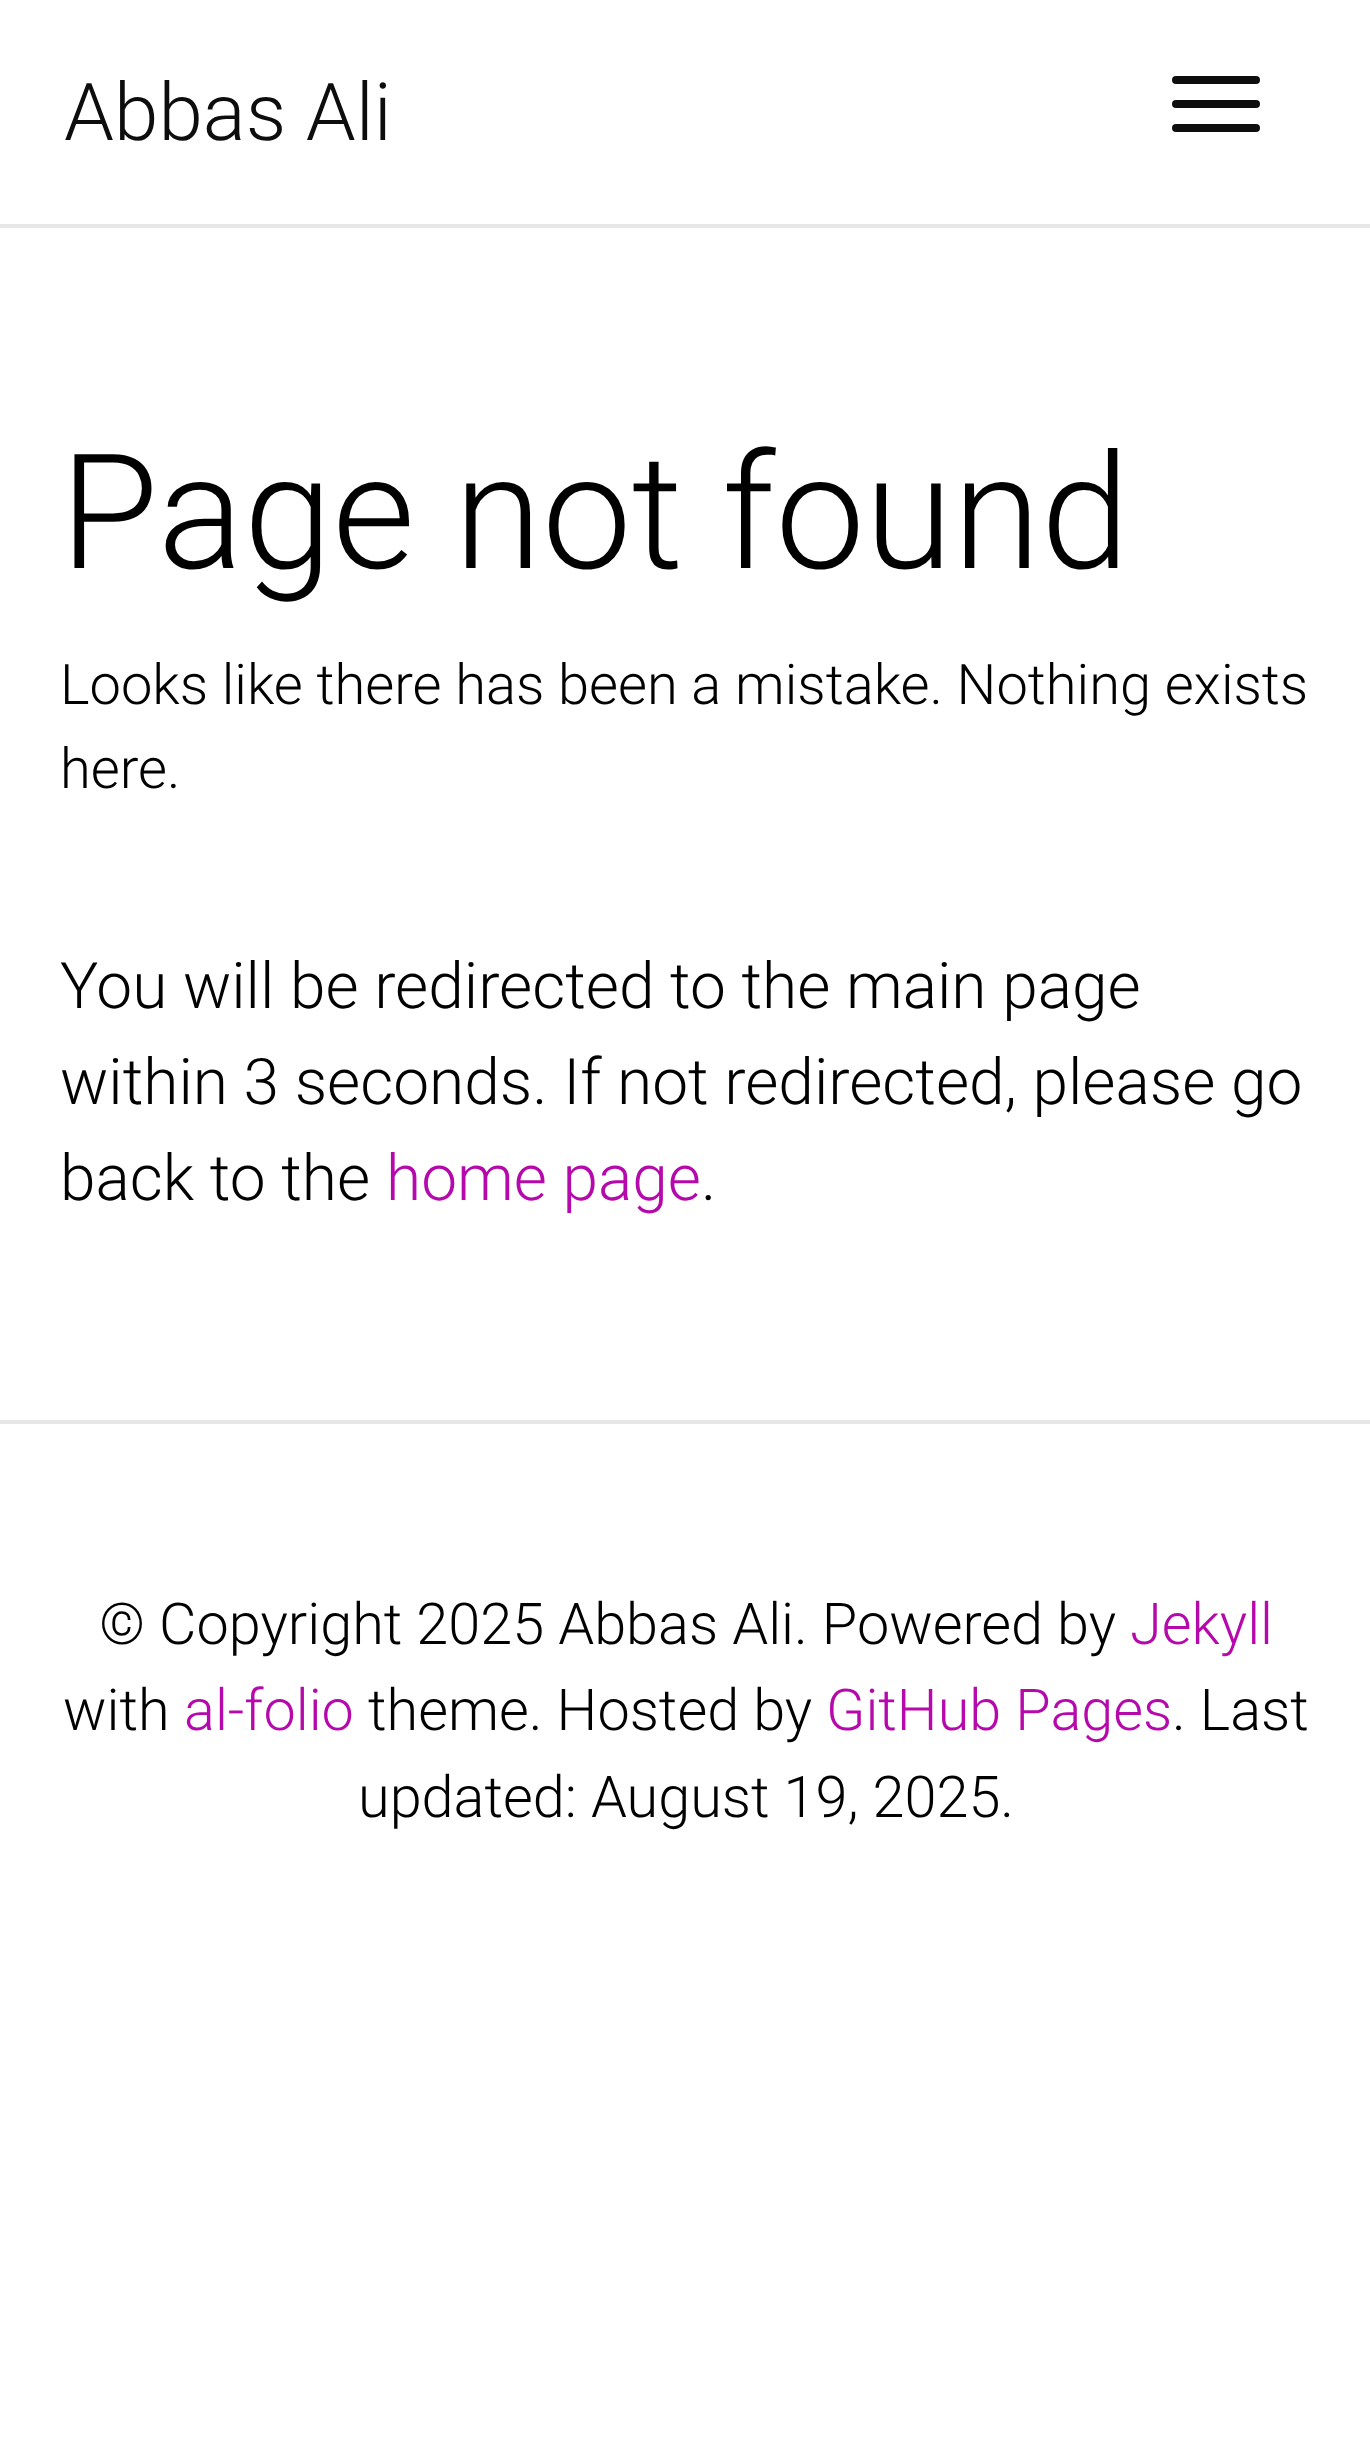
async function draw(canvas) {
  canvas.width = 1370;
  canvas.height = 2452;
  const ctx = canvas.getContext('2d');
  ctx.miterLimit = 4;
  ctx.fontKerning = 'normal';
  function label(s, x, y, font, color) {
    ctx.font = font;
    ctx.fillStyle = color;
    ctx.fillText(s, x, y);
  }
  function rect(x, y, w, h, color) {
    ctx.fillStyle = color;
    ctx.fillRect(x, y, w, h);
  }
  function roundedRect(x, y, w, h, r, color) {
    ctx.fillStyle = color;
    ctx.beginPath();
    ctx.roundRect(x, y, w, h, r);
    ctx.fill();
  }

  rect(0, 0, 1370, 2452, '#fff');
  rect(0, 224, 1370, 4, '#e7e7e7');
  label('Abbas Ali', 64, 140, '300 80px Roboto', '#0d0d0d');
  roundedRect(1172, 76, 88, 8, 4, '#0d0d0d');
  roundedRect(1172, 100, 88, 8, 4, '#0d0d0d');
  roundedRect(1172, 124, 88, 8, 4, '#0d0d0d');
  label('Page not found', 60, 568, '300 160px Roboto', '#000');
  label('Looks like there has been a mistake. Nothing exists', 60, 704, '300 56px Roboto', '#000');
  label('here.', 60, 788, '300 56px Roboto', '#000');
  label('You will be redirected to the main page', 60, 1008, '300 64px Roboto', '#000');
  label('within 3 seconds. If not redirected, please go', 60, 1104, '300 64px Roboto', '#000');
  label('back to the', 60, 1200, '300 64px Roboto', '#000');
  label('home page', 386, 1200, '300 64px Roboto', '#b509ac');
  label('.', 701, 1200, '300 64px Roboto', '#000');
  rect(0, 1420, 1370, 4, '#e6e6e6');
  label('© Copyright 2025 Abbas Ali. Powered by', 99, 1644, '300 57.6px Roboto', '#000');
  label('Jekyll', 1130, 1644, '300 57.6px Roboto', '#b509ac');
  label('with', 63, 1730, '300 57.6px Roboto', '#000');
  label('al-folio', 184, 1730, '300 57.6px Roboto', '#b509ac');
  label('theme. Hosted by', 368, 1730, '300 57.6px Roboto', '#000');
  label('GitHub Pages', 826, 1730, '300 57.6px Roboto', '#b509ac');
  label('. Last', 1172, 1730, '300 57.6px Roboto', '#000');
  label('updated: August 19, 2025.', 358, 1817, '300 57.6px Roboto', '#000');
}

draw(document.querySelector('canvas'));
